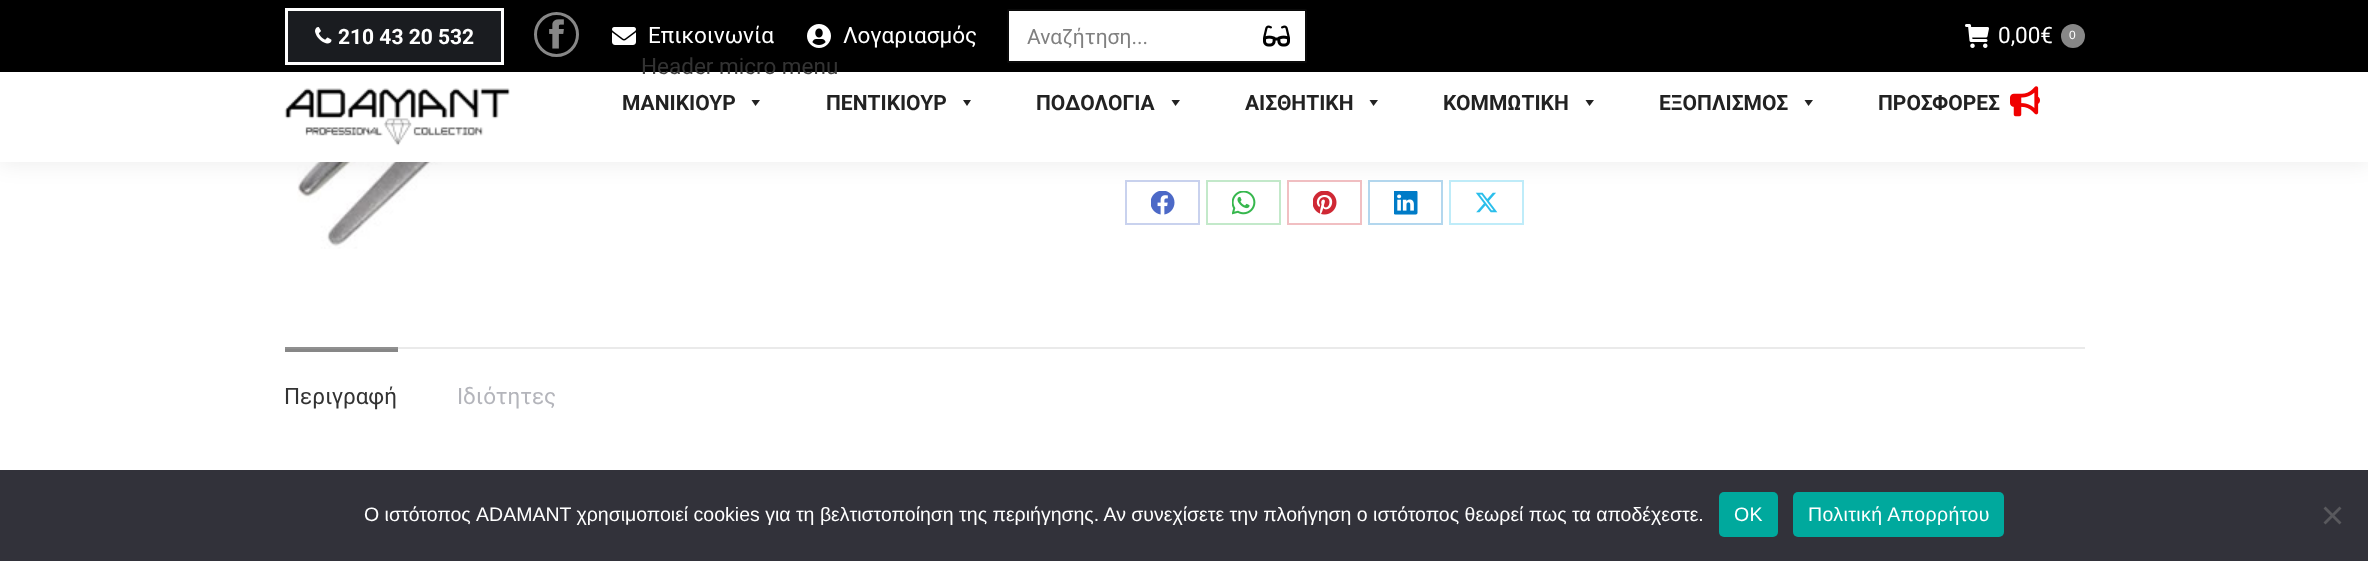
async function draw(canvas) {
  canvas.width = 2368;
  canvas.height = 561;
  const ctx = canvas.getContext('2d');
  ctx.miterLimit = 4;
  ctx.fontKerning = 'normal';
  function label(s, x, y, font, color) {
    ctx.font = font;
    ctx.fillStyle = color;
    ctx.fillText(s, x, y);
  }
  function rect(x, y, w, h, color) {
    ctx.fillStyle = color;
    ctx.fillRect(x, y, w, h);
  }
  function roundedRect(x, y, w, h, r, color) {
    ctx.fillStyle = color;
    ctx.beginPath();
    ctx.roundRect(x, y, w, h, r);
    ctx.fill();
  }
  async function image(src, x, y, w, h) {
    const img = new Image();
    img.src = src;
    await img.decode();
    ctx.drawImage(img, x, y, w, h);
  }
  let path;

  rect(0, 0, 2368, 561, '#fff');
  await image('assets/img9.png', 297, 162, 307, 87);
  ctx.strokeStyle = '#c9d2ee';
  ctx.lineWidth = 2;
  ctx.strokeRect(1126, 181, 73, 43);
  await image('assets/img10.png', 1151, 191, 24, 24);
  ctx.strokeStyle = '#c3e9ca';
  ctx.strokeRect(1207, 181, 73, 43);
  await image('assets/img11.png', 1232, 191, 24, 24);
  ctx.strokeStyle = '#f1bfc2';
  ctx.strokeRect(1288, 181, 73, 43);
  await image('assets/img12.png', 1313, 191, 24, 24);
  ctx.strokeStyle = '#b3d7ee';
  ctx.strokeRect(1369, 181, 73, 43);
  await image('assets/img13.png', 1394, 191, 24, 24);
  ctx.strokeStyle = '#bfecf9';
  ctx.strokeRect(1450, 181, 73, 43);
  await image('assets/img14.png', 1475, 192, 23, 21);
  ctx.fillStyle = '#00000012';
  ctx.filter = 'blur(11px)';
  ctx.beginPath();
  ctx.rect(-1, -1, 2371, 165);
  ctx.fill();
  ctx.filter = 'none';
  rect(0, 72, 2368, 90, '#fff');
  rect(0, 0, 2368, 72, '#000');
  ctx.fillStyle = '#1a1c20';
  ctx.beginPath();
  ctx.rect(286.5, 9.5, 216, 54);
  ctx.fill();
  ctx.strokeStyle = '#fff';
  ctx.lineWidth = 3;
  ctx.stroke();
  await image('assets/img1.png', 315, 27, 17, 17);
  label('210 43 20 532', 338, 44, 'bold 21px Roboto', '#fff');
  ctx.beginPath();
  ctx.arc(556.5, 34.5, 21, 0, 2 * Math.PI);
  ctx.strokeStyle = '#878787';
  ctx.stroke();
  await image('assets/img2.png', 549, 19, 15, 30);
  await image('assets/img3.png', 612, 27, 24, 18);
  label('Επικοινωνία', 648, 43, '22.5px Roboto', '#fff');
  await image('assets/img4.png', 807, 24, 24, 24);
  label('Λογαριασμός', 843, 43, '22.5px Roboto', '#fff');
  label('Header micro menu', 641, 74, '22.5px Roboto', '#333');
  ctx.fillStyle = '#fff';
  ctx.beginPath();
  ctx.roundRect(1008, 10, 298, 52, 0.5);
  ctx.fill();
  ctx.strokeStyle = '#0a0a0a';
  ctx.lineWidth = 2;
  ctx.stroke();
  ctx.save();
  ctx.beginPath();
  ctx.rect(1026, 24, 261, 24);
  ctx.clip();
  label('Αναζήτηση...', 1027, 44, '21px Roboto', '#808080');
  ctx.restore();
  await image('assets/img5.png', 1263, 25, 27, 22);
  await image('assets/img6.png', 1965, 24, 24, 24);
  label('0,00€', 1998, 43, '22.5px Roboto', '#fff');
  ctx.fillStyle = '#878787';
  ctx.beginPath();
  ctx.arc(2073, 36, 12, 0, 2 * Math.PI);
  ctx.fill();
  label('0', 2069, 39, '12px Liberation Sans', '#fff');
  await image('assets/img7.png', 284, 88, 226, 58);
  rect(643, 72, 195, 3, '#ffffff1a');
  label('ΜΑΝΙΚΙΟΥΡ', 622, 110, 'bold 21px Roboto', '#222');
  path = new Path2D('M760 100L755.5 106L751.5 100Z');
  ctx.fill(path);
  label('ΠΕΝΤΙΚΙΟΥΡ', 826, 110, 'bold 21px Roboto', '#222');
  path = new Path2D('M971 100L967 106L963 100Z');
  ctx.fill(path);
  label('ΠΟΔΟΛΟΓΙΑ', 1036, 110, 'bold 21px Roboto', '#222');
  path = new Path2D('M1180 100L1175.5 106L1171.5 100Z');
  ctx.fill(path);
  label('ΑΙΣΘΗΤΙΚΗ', 1245, 110, 'bold 21px Roboto', '#222');
  path = new Path2D('M1378 100L1373.5 106L1369.5 100Z');
  ctx.fill(path);
  label('ΚΟΜΜΩΤΙΚΗ', 1443, 110, 'bold 21px Roboto', '#222');
  path = new Path2D('M1594 100L1589.5 106L1585.5 100Z');
  ctx.fill(path);
  label('ΕΞΟΠΛΙΣΜΟΣ', 1659, 110, 'bold 21px Roboto', '#222');
  path = new Path2D('M1813 100L1808.5 106L1804.5 100Z');
  ctx.fill(path);
  label('ΠΡΟΣΦΟΡΕΣ', 1878, 110, 'bold 21px Roboto', '#222');
  await image('assets/img8.png', 2010, 86, 30, 31);
  rect(398, 347, 1687, 2, '#eaeaea');
  rect(285, 349, 113, 3, '#878787');
  rect(285, 347, 113, 2, '#909090');
  label('Περιγραφή', 284, 404, '22.5px Roboto', '#333');
  label('Ιδιότητες', 457, 404, '22.5px Roboto', '#b4b5bb');
  rect(0, 470, 2368, 91, '#32323a');
  label('Ο ιστότοπος ADAMANT χρησιμοποιεί cookies για τη βελτιστοποίηση της περιήγησης. Αν συνεχίσετε την πλοήγηση ο ιστότοπος θεωρεί πως τα αποδέχεστε.', 364, 521, '19.5px Liberation Sans', '#fff');
  roundedRect(1719, 492, 59, 45, 5, '#00a99d');
  ctx.letterSpacing = '0.4px';
  label('OK', 1734, 521, '19.5px Liberation Sans', '#fff');
  roundedRect(1793, 492, 211, 45, 5, '#00a99d');
  label('Πολιτική Απορρήτου', 1808, 521, '19.5px Liberation Sans', '#fff');
  ctx.fillStyle = '#59595d';
  path = new Path2D('M2339.5 506.5L2341.5 508.5L2325.5 524.5L2323.5 522.5Z');
  ctx.fill(path);
  path = new Path2D('M2323.5 508.5L2325.5 506.5L2341.5 522.5L2339.5 524.5Z');
  ctx.fill(path);
}

draw(document.querySelector('canvas'));
